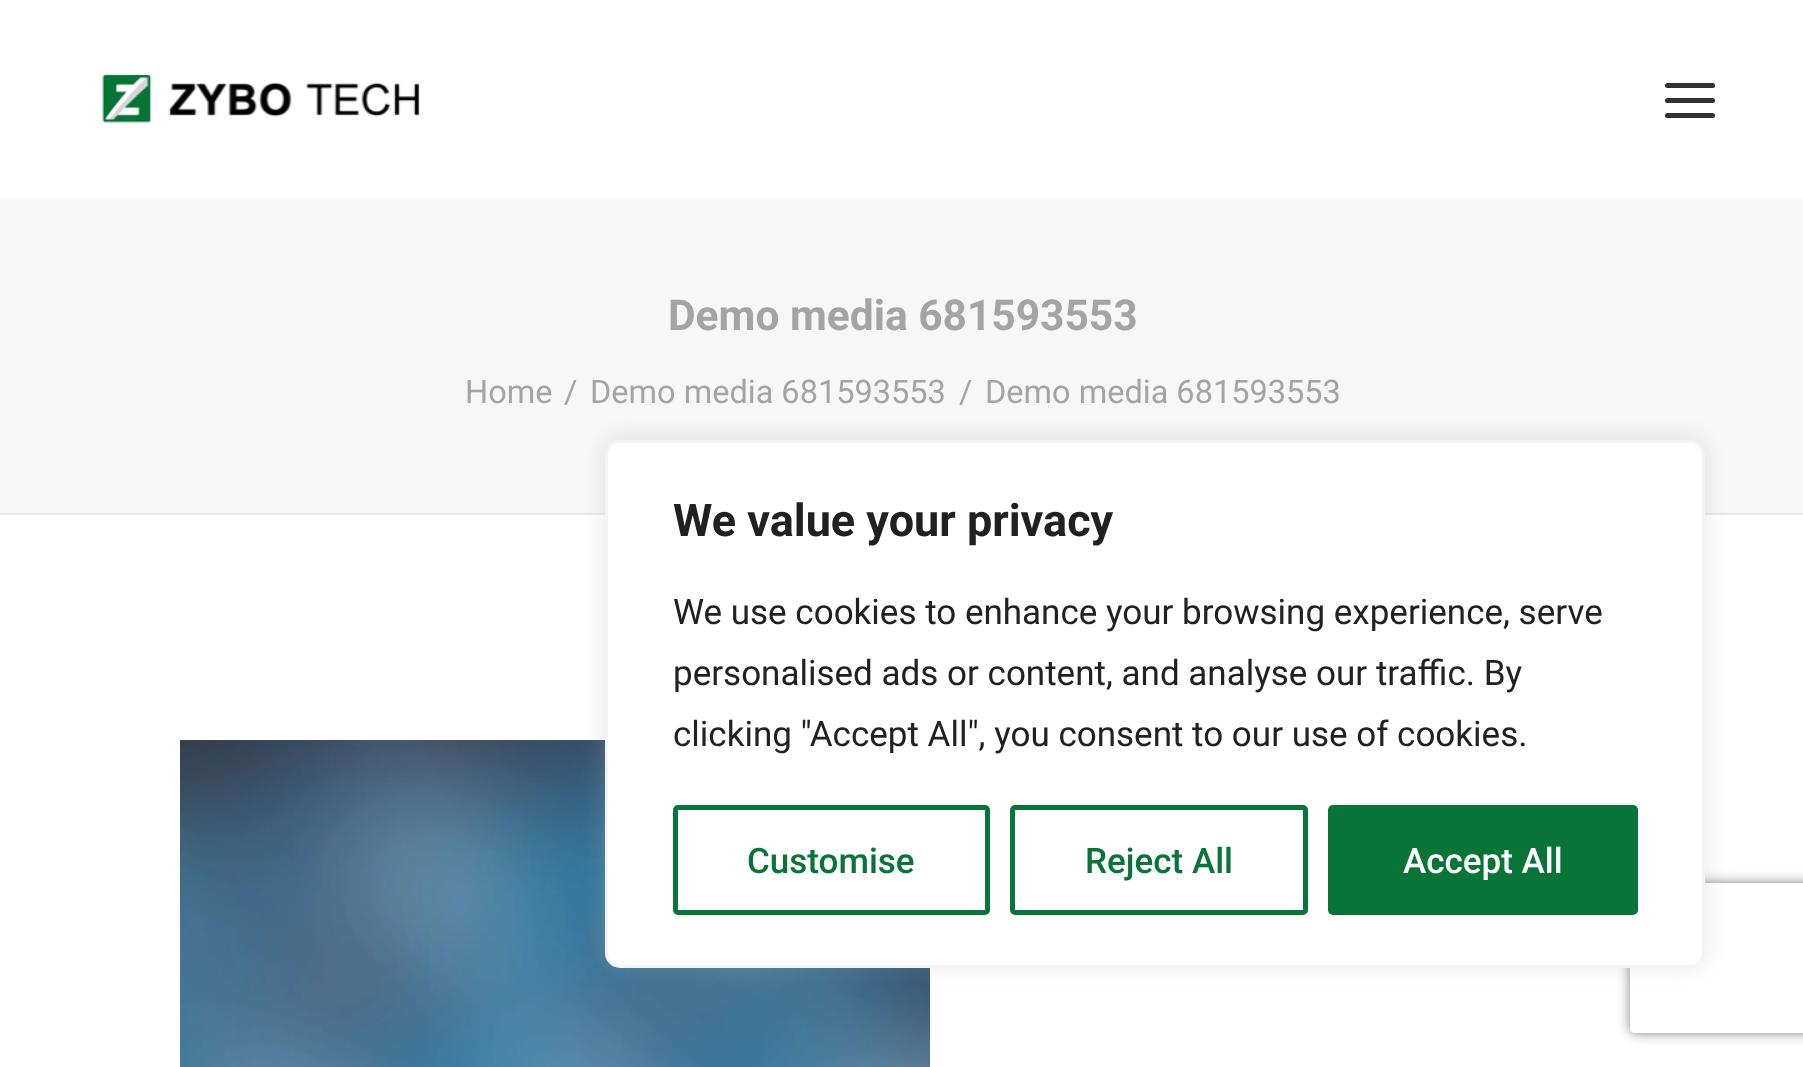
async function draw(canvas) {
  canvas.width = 1803;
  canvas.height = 1067;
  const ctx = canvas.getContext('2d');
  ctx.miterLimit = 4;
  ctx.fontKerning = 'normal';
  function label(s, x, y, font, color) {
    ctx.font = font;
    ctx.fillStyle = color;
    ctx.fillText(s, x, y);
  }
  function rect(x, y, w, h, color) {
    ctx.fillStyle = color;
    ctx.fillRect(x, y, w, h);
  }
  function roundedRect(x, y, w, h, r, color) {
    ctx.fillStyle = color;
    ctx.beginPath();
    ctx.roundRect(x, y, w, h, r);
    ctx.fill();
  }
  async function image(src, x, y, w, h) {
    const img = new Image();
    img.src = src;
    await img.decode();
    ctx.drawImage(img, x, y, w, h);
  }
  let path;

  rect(0, 0, 1803, 1067, '#f7f7f7');
  rect(0, 0, 1803, 198, '#fff');
  await image('assets/img1.png', 102, 73, 318, 50);
  roundedRect(1665, 98, 50, 5, 2.5, '#303133');
  roundedRect(1665, 83, 50, 5, 2.5, '#303133');
  roundedRect(1665, 113, 50, 5, 2.5, '#303133');
  rect(0, 513, 1803, 2, '#eaeaea');
  label('Demo media 681593553', 668, 330, 'bold 42.5px Roboto', '#a4a4a4');
  label('Home', 465, 403, '32.5px Roboto', '#a4a4a4');
  label('/', 564, 403, '32.5px Roboto', '#a4a4a4');
  label('Demo media 681593553', 590, 403, '32.5px Roboto', '#a4a4a4');
  label('/', 959, 403, '32.5px Roboto', '#a4a4a4');
  label('Demo media 681593553', 985, 403, '32.5px Roboto', '#a4a4a4');
  rect(0, 515, 1803, 552, '#fff');
  await image('assets/img2.png', 180, 740, 750, 327);
  ctx.fillStyle = '#acabab4d';
  ctx.filter = 'blur(12.5px)';
  ctx.beginPath();
  ctx.roundRect(605, 438, 1100, 527, 15);
  ctx.fill();
  ctx.filter = 'none';
  ctx.save();
  path = new Path2D('M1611 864H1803V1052H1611ZM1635 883H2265C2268 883 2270 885 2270 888V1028C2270 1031 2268 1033 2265 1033H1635C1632 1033 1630 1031 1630 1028V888C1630 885 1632 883 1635 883Z');
  ctx.clip(path, 'evenodd');
  ctx.fillStyle = '#808080';
  ctx.filter = 'blur(6px)';
  ctx.beginPath();
  ctx.roundRect(1630, 883, 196, 150, 5);
  ctx.fill();
  ctx.filter = 'none';
  ctx.restore();
  ctx.fillStyle = '#fff';
  ctx.beginPath();
  ctx.roundRect(606.5, 441.5, 1097, 525, 13.5);
  ctx.fill();
  ctx.strokeStyle = '#f4f4f4';
  ctx.lineWidth = 3;
  ctx.stroke();
  label('We value your privacy', 673, 536, 'bold 45px Roboto', '#212121');
  label('We use cookies to enhance your browsing experience, serve', 673, 624, '35px Roboto', '#212121');
  label('personalised ads or content, and analyse our traffic. By', 673, 685, '35px Roboto', '#212121');
  label('clicking "Accept All", you consent to our use of cookies.', 673, 746, '35px Roboto', '#212121');
  ctx.beginPath();
  ctx.roundRect(675.5, 807.5, 312, 105, 2.5);
  ctx.strokeStyle = '#087438';
  ctx.lineWidth = 5;
  ctx.stroke();
  label('Customise', 747, 873, '500 35px Roboto', '#087438');
  ctx.beginPath();
  ctx.roundRect(1012.5, 807.5, 293, 105, 2.5);
  ctx.stroke();
  label('Reject All', 1085, 873, '500 35px Roboto', '#087438');
  ctx.beginPath();
  ctx.roundRect(1330.5, 807.5, 305, 105, 2.5);
  ctx.fill();
  ctx.stroke();
  label('Accept All', 1403, 873, '500 35px Roboto', '#fff');
}

draw(document.querySelector('canvas'));
